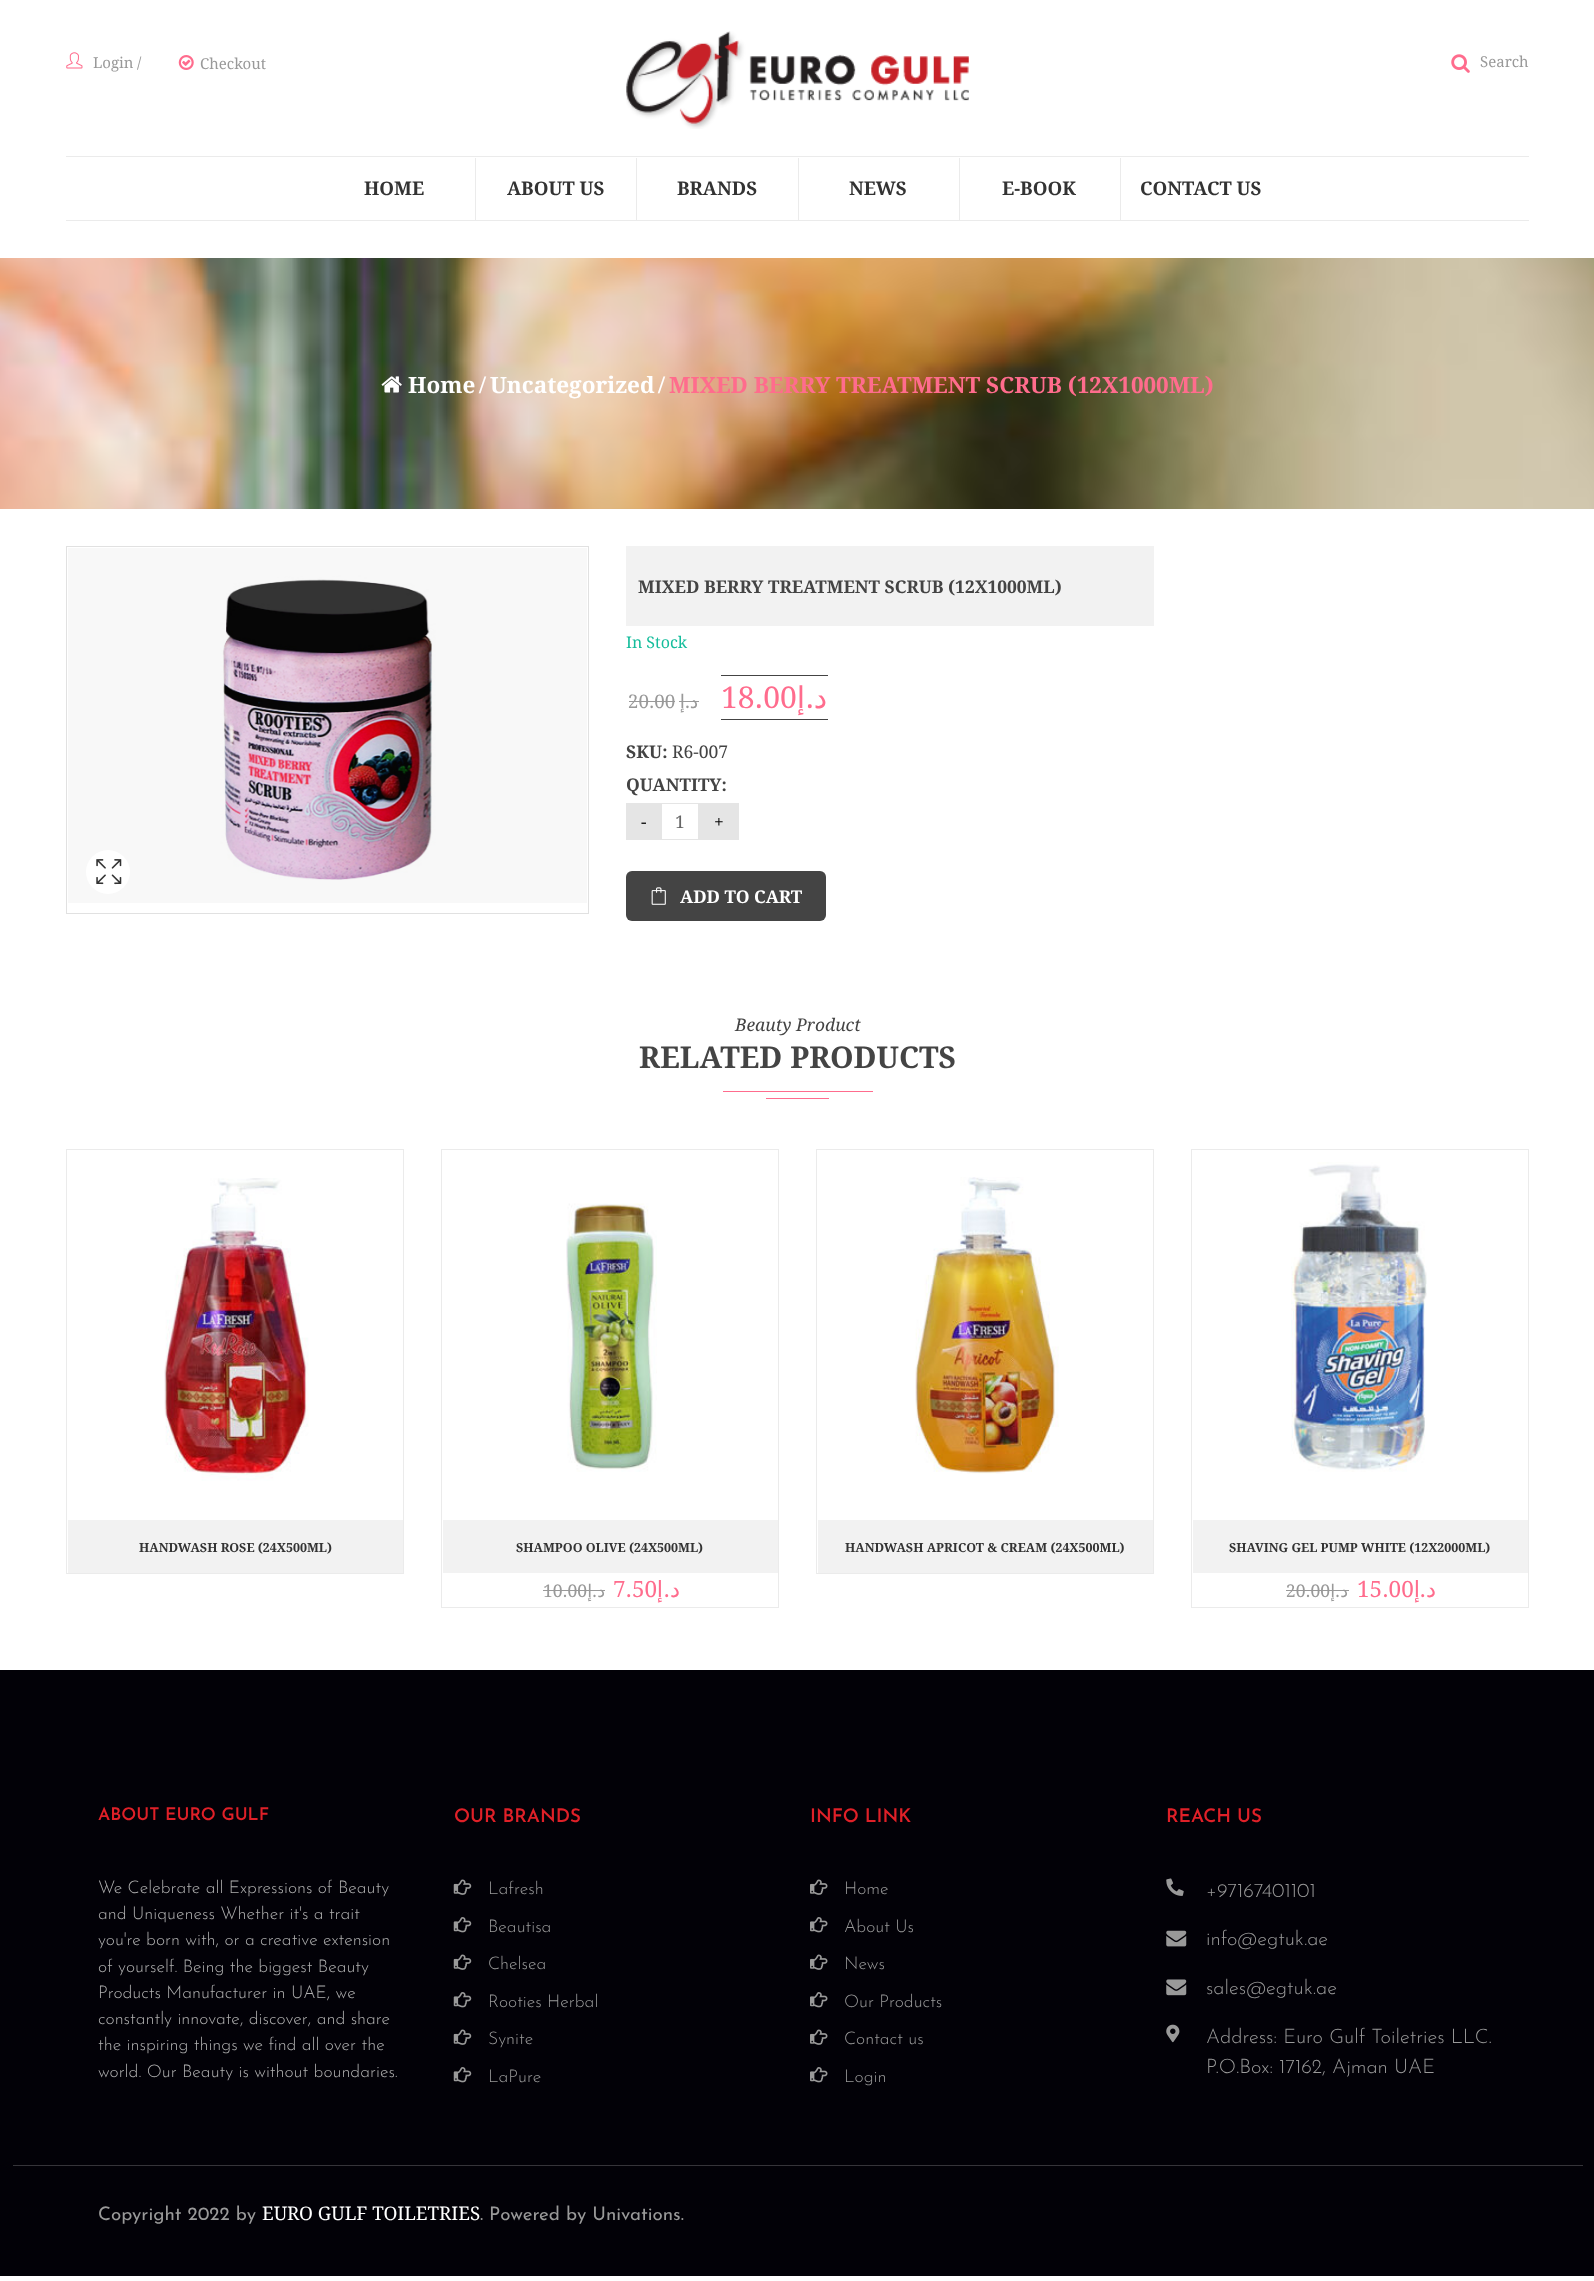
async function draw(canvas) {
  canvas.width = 1594;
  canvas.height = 2281;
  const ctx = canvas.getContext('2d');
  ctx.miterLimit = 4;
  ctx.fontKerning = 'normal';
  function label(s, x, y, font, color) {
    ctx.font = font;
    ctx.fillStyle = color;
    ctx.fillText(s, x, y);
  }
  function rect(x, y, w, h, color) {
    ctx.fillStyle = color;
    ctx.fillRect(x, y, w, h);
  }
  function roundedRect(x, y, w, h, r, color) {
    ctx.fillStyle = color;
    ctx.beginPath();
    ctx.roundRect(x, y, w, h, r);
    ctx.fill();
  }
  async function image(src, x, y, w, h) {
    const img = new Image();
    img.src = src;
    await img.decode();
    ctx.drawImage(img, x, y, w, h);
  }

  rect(0, 0, 1594, 2281, '#fff');
  await image('assets/img1.png', 66, 52, 17, 17);
  label('Login', 93, 68, '15px Droid Serif', '#999');
  label('/', 137, 68, '15px Droid Serif', '#999');
  await image('assets/img2.png', 178, 55, 16, 15);
  label('Checkout', 200, 69, '15px Droid Serif', '#999');
  await image('assets/img3.png', 626, 31, 343, 98);
  await image('assets/img4.png', 1451, 54, 19, 19);
  label('Search', 1480, 67, '15px Droid Serif', '#999');
  rect(66, 156, 1463, 1, '#ebebeb');
  rect(66, 220, 1463, 1, '#ebebeb');
  label('HOME', 364, 195, 'bold 18.75px Droid Serif', '#333');
  rect(475, 158, 1, 62, '#ebebeb');
  label('ABOUT US', 507, 195, 'bold 18.75px Droid Serif', '#333');
  rect(636, 158, 1, 62, '#ebebeb');
  label('BRANDS', 677, 195, 'bold 18.75px Droid Serif', '#333');
  rect(798, 158, 1, 62, '#ebebeb');
  label('NEWS', 849, 195, 'bold 18.75px Droid Serif', '#333');
  rect(959, 158, 1, 62, '#ebebeb');
  label('E-BOOK', 1002, 195, 'bold 18.75px Droid Serif', '#333');
  rect(1120, 158, 1, 62, '#ebebeb');
  label('CONTACT US', 1140, 195, 'bold 18.75px Droid Serif', '#333');
  await image('assets/img5.png', 0, 258, 1594, 251);
  await image('assets/img6.png', 381, 376, 21, 17);
  label('Home', 408, 393, 'bold 22.5px Droid Serif', '#fff');
  label('/', 479, 393, 'bold 25px Liberation Serif', '#fff');
  label('Uncategorized', 490, 393, 'bold 22.5px Droid Serif', '#fff');
  label('/', 658, 393, 'bold 25px Liberation Serif', '#fff');
  label('MIXED BERRY TREATMENT SCRUB (12X1000ML)', 669, 393, 'bold 22.5px Droid Serif', '#ff6c8d');
  ctx.strokeStyle = '#e1e1e1';
  ctx.strokeRect(66.5, 546.5, 522, 367);
  await image('assets/img7.png', 68, 548, 519, 355);
  ctx.fillStyle = '#fff';
  ctx.beginPath();
  ctx.arc(108, 872, 22, 0, 2 * Math.PI);
  ctx.fill();
  await image('assets/img8.png', 96, 859, 26, 26);
  rect(626, 546, 528, 80, '#f2f2f2');
  label('MIXED BERRY TREATMENT SCRUB (12X1000ML)', 638, 593, 'bold 17.5px Droid Serif', '#444');
  label('In Stock', 626, 648, '16px Droid Serif', '#15bd9c');
  label('20.00', 628, 708, '18.75px Droid Serif', '#999');
  rect(629, 701, 46, 1, '#999');
  ctx.direction = 'rtl';
  label('إ', 685, 708, '18.75px DejaVu Sans', '#999');
  rect(679, 701, 20, 1, '#999');
  label('.', 690, 708, '18.75px Droid Serif', '#999');
  label('د', 698, 708, '18.75px DejaVu Sans', '#999');
  ctx.direction = 'ltr';
  label('18.00', 721, 708, '30px Droid Serif', '#ff6c8d');
  rect(721, 675, 107, 1, '#444');
  ctx.direction = 'rtl';
  label('إ', 805, 708, '30px DejaVu Sans', '#ff6c8d');
  label('.', 814, 708, '30px Droid Serif', '#ff6c8d');
  rect(721, 719, 107, 1, '#444');
  label('د', 827, 708, '30px DejaVu Sans', '#ff6c8d');
  ctx.direction = 'ltr';
  label('SKU:', 626, 758, 'bold 17.5px Droid Serif', '#444');
  label('R6-007', 672, 758, '17.5px Droid Serif', '#444');
  label('QUANTITY:', 626, 791, 'bold 17.5px Droid Serif', '#444');
  rect(626, 803, 35, 37, '#e5e5e5');
  label('-', 641, 828, '17.5px Droid Serif', '#000');
  ctx.strokeStyle = '#e5e5e5';
  ctx.strokeRect(661.5, 803.5, 37, 36);
  label('1', 675, 828, '17.5px Droid Serif', '#666');
  rect(699, 803, 40, 37, '#e5e5e5');
  label('+', 714, 828, '17.5px Droid Serif', '#000');
  roundedRect(626, 871, 200, 50, 6, '#444');
  await image('assets/img9.png', 651, 887, 15, 18);
  label('ADD TO CART', 680, 903, 'bold 17.5px Droid Serif', '#fff');
  label('Beauty Product', 735, 1031, 'italic 17.5px Droid Serif', '#444');
  label('RELATED PRODUCTS', 639, 1068, 'bold 30px Droid Serif', '#444');
  rect(723, 1091, 150, 1, '#ff6c8d');
  rect(766, 1098, 63, 1, '#ff6c8d');
  ctx.strokeStyle = '#ebebeb';
  ctx.strokeRect(66.5, 1149.5, 337, 424);
  await image('assets/img10.png', 164, 1178, 145, 303);
  rect(68, 1520, 335, 53, '#f2f2f2');
  label('HANDWASH ROSE (24X500ML)', 139, 1552, 'bold 12.5px Droid Serif', '#333');
  ctx.strokeRect(441.5, 1149.5, 337, 458);
  await image('assets/img11.png', 566, 1203, 91, 269);
  rect(443, 1520, 335, 53, '#f2f2f2');
  label('SHAMPOO OLIVE (24X500ML)', 516, 1552, 'bold 12.5px Droid Serif', '#333');
  label('10.00', 543, 1597, '17.5px Droid Serif', '#999');
  rect(543, 1590, 43, 1, '#999');
  rect(586, 1590, 19, 1, '#999');
  ctx.direction = 'rtl';
  label('إ', 592, 1597, '17.5px DejaVu Sans', '#999');
  label('.', 597, 1597, '17.5px Droid Serif', '#999');
  label('د', 605, 1597, '17.5px DejaVu Sans', '#999');
  ctx.direction = 'ltr';
  label('7.50', 613, 1597, '22.5px Droid Serif', '#ff6c8d');
  ctx.direction = 'rtl';
  label('إ', 663, 1597, '22.5px DejaVu Sans', '#ff6c8d');
  label('.', 670, 1597, '22.5px Droid Serif', '#ff6c8d');
  label('د', 680, 1597, '22.5px DejaVu Sans', '#ff6c8d');
  ctx.strokeRect(816.5, 1149.5, 337, 424);
  await image('assets/img12.png', 915, 1177, 144, 297);
  rect(818, 1520, 335, 53, '#f2f2f2');
  ctx.direction = 'ltr';
  label('HANDWASH APRICOT & CREAM (24X500ML)', 845, 1552, 'bold 12.5px Droid Serif', '#333');
  ctx.strokeRect(1191.5, 1149.5, 337, 458);
  await image('assets/img13.png', 1291, 1162, 136, 310);
  rect(1193, 1520, 335, 53, '#f2f2f2');
  label('SHAVING GEL PUMP WHITE (12X2000ML)', 1229, 1552, 'bold 12.5px Droid Serif', '#333');
  label('20.00', 1286, 1597, '17.5px Droid Serif', '#999');
  rect(1286, 1590, 44, 1, '#999');
  rect(1330, 1590, 19, 1, '#999');
  ctx.direction = 'rtl';
  label('إ', 1335, 1597, '17.5px DejaVu Sans', '#999');
  label('.', 1340, 1597, '17.5px Droid Serif', '#999');
  label('د', 1348, 1597, '17.5px DejaVu Sans', '#999');
  ctx.direction = 'ltr';
  label('15.00', 1357, 1597, '22.5px Droid Serif', '#ff6c8d');
  ctx.direction = 'rtl';
  label('إ', 1420, 1597, '22.5px DejaVu Sans', '#ff6c8d');
  label('.', 1426, 1597, '22.5px Droid Serif', '#ff6c8d');
  label('د', 1436, 1597, '22.5px DejaVu Sans', '#ff6c8d');
  rect(0, 1670, 1594, 606, '#020107');
  ctx.direction = 'ltr';
  label('ABOUT EURO GULF', 98, 1820, '600 17.5px Josefin Sans', '#df2028');
  label('We Celebrate all Expressions of Beauty', 98, 1893, '300 17.5px Josefin Sans', '#aeaeae');
  label('and Uniqueness Whether it\'s a trait', 98, 1919, '300 17.5px Josefin Sans', '#aeaeae');
  label('you\'re born with, or a creative extension', 98, 1945, '300 17.5px Josefin Sans', '#aeaeae');
  label('of yourself. Being the biggest Beauty', 98, 1972, '300 17.5px Josefin Sans', '#aeaeae');
  label('Products Manufacturer in UAE, we', 98, 1998, '300 17.5px Josefin Sans', '#aeaeae');
  label('constantly innovate, discover, and share', 98, 2024, '300 17.5px Josefin Sans', '#aeaeae');
  label('the inspiring things we find all over the', 98, 2050, '300 17.5px Josefin Sans', '#aeaeae');
  label('world. Our Beauty is without boundaries.', 98, 2077, '300 17.5px Josefin Sans', '#aeaeae');
  label('OUR BRANDS', 454, 1822, '600 18.75px Josefin Sans', '#df2028');
  await image('assets/img14.png', 453, 1879, 19, 16);
  label('Lafresh', 488, 1894, '300 17.5px Josefin Sans', '#999');
  await image('assets/img15.png', 453, 1917, 19, 16);
  label('Beautisa', 488, 1932, '300 17.5px Josefin Sans', '#999');
  await image('assets/img14.png', 453, 1954, 19, 16);
  label('Chelsea', 488, 1969, '300 17.5px Josefin Sans', '#999');
  await image('assets/img15.png', 453, 1992, 19, 16);
  label('Rooties Herbal', 488, 2007, '300 17.5px Josefin Sans', '#999');
  await image('assets/img14.png', 453, 2029, 19, 16);
  label('Synite', 488, 2044, '300 17.5px Josefin Sans', '#999');
  await image('assets/img15.png', 453, 2067, 19, 16);
  label('LaPure', 488, 2082, '300 17.5px Josefin Sans', '#999');
  label('INFO LINK', 810, 1822, '600 18.75px Josefin Sans', '#df2028');
  await image('assets/img16.png', 810, 1879, 18, 16);
  label('Home', 844, 1894, '300 17.5px Josefin Sans', '#999');
  await image('assets/img17.png', 810, 1917, 18, 16);
  label('About Us', 844, 1932, '300 17.5px Josefin Sans', '#999');
  await image('assets/img16.png', 810, 1954, 18, 16);
  label('News', 844, 1969, '300 17.5px Josefin Sans', '#999');
  await image('assets/img17.png', 810, 1992, 18, 16);
  label('Our Products', 844, 2007, '300 17.5px Josefin Sans', '#999');
  await image('assets/img16.png', 810, 2029, 18, 16);
  label('Contact us', 844, 2044, '300 17.5px Josefin Sans', '#999');
  await image('assets/img17.png', 810, 2067, 18, 16);
  label('Login', 844, 2082, '300 17.5px Josefin Sans', '#999');
  label('REACH US', 1166, 1822, '600 18.75px Josefin Sans', '#df2028');
  await image('assets/img18.png', 1166, 1878, 18, 18);
  label('+97167401101', 1206, 1897, '300 20px Josefin Sans', '#999');
  await image('assets/img19.png', 1166, 1930, 21, 17);
  label('info@egtuk.ae', 1206, 1945, '300 20px Josefin Sans', '#999');
  await image('assets/img20.png', 1166, 1979, 21, 17);
  label('sales@egtuk.ae', 1206, 1994, '300 20px Josefin Sans', '#999');
  await image('assets/img21.png', 1166, 2024, 14, 19);
  label('Address: Euro Gulf Toiletries LLC.', 1206, 2043, '300 20px Josefin Sans', '#999');
  label('P.O.Box: 17162, Ajman UAE', 1206, 2073, '300 20px Josefin Sans', '#999');
  rect(13, 2165, 1570, 1, '#353439');
  label('Copyright 2022 by', 98, 2220, '18.75px Josefin Sans', '#999');
  label('EURO GULF TOILETRIES', 262, 2220, '18.75px Droid Serif', '#fff');
  label('. Powered by Univations.', 480, 2220, '18.75px Josefin Sans', '#999');
}

draw(document.querySelector('canvas'));
